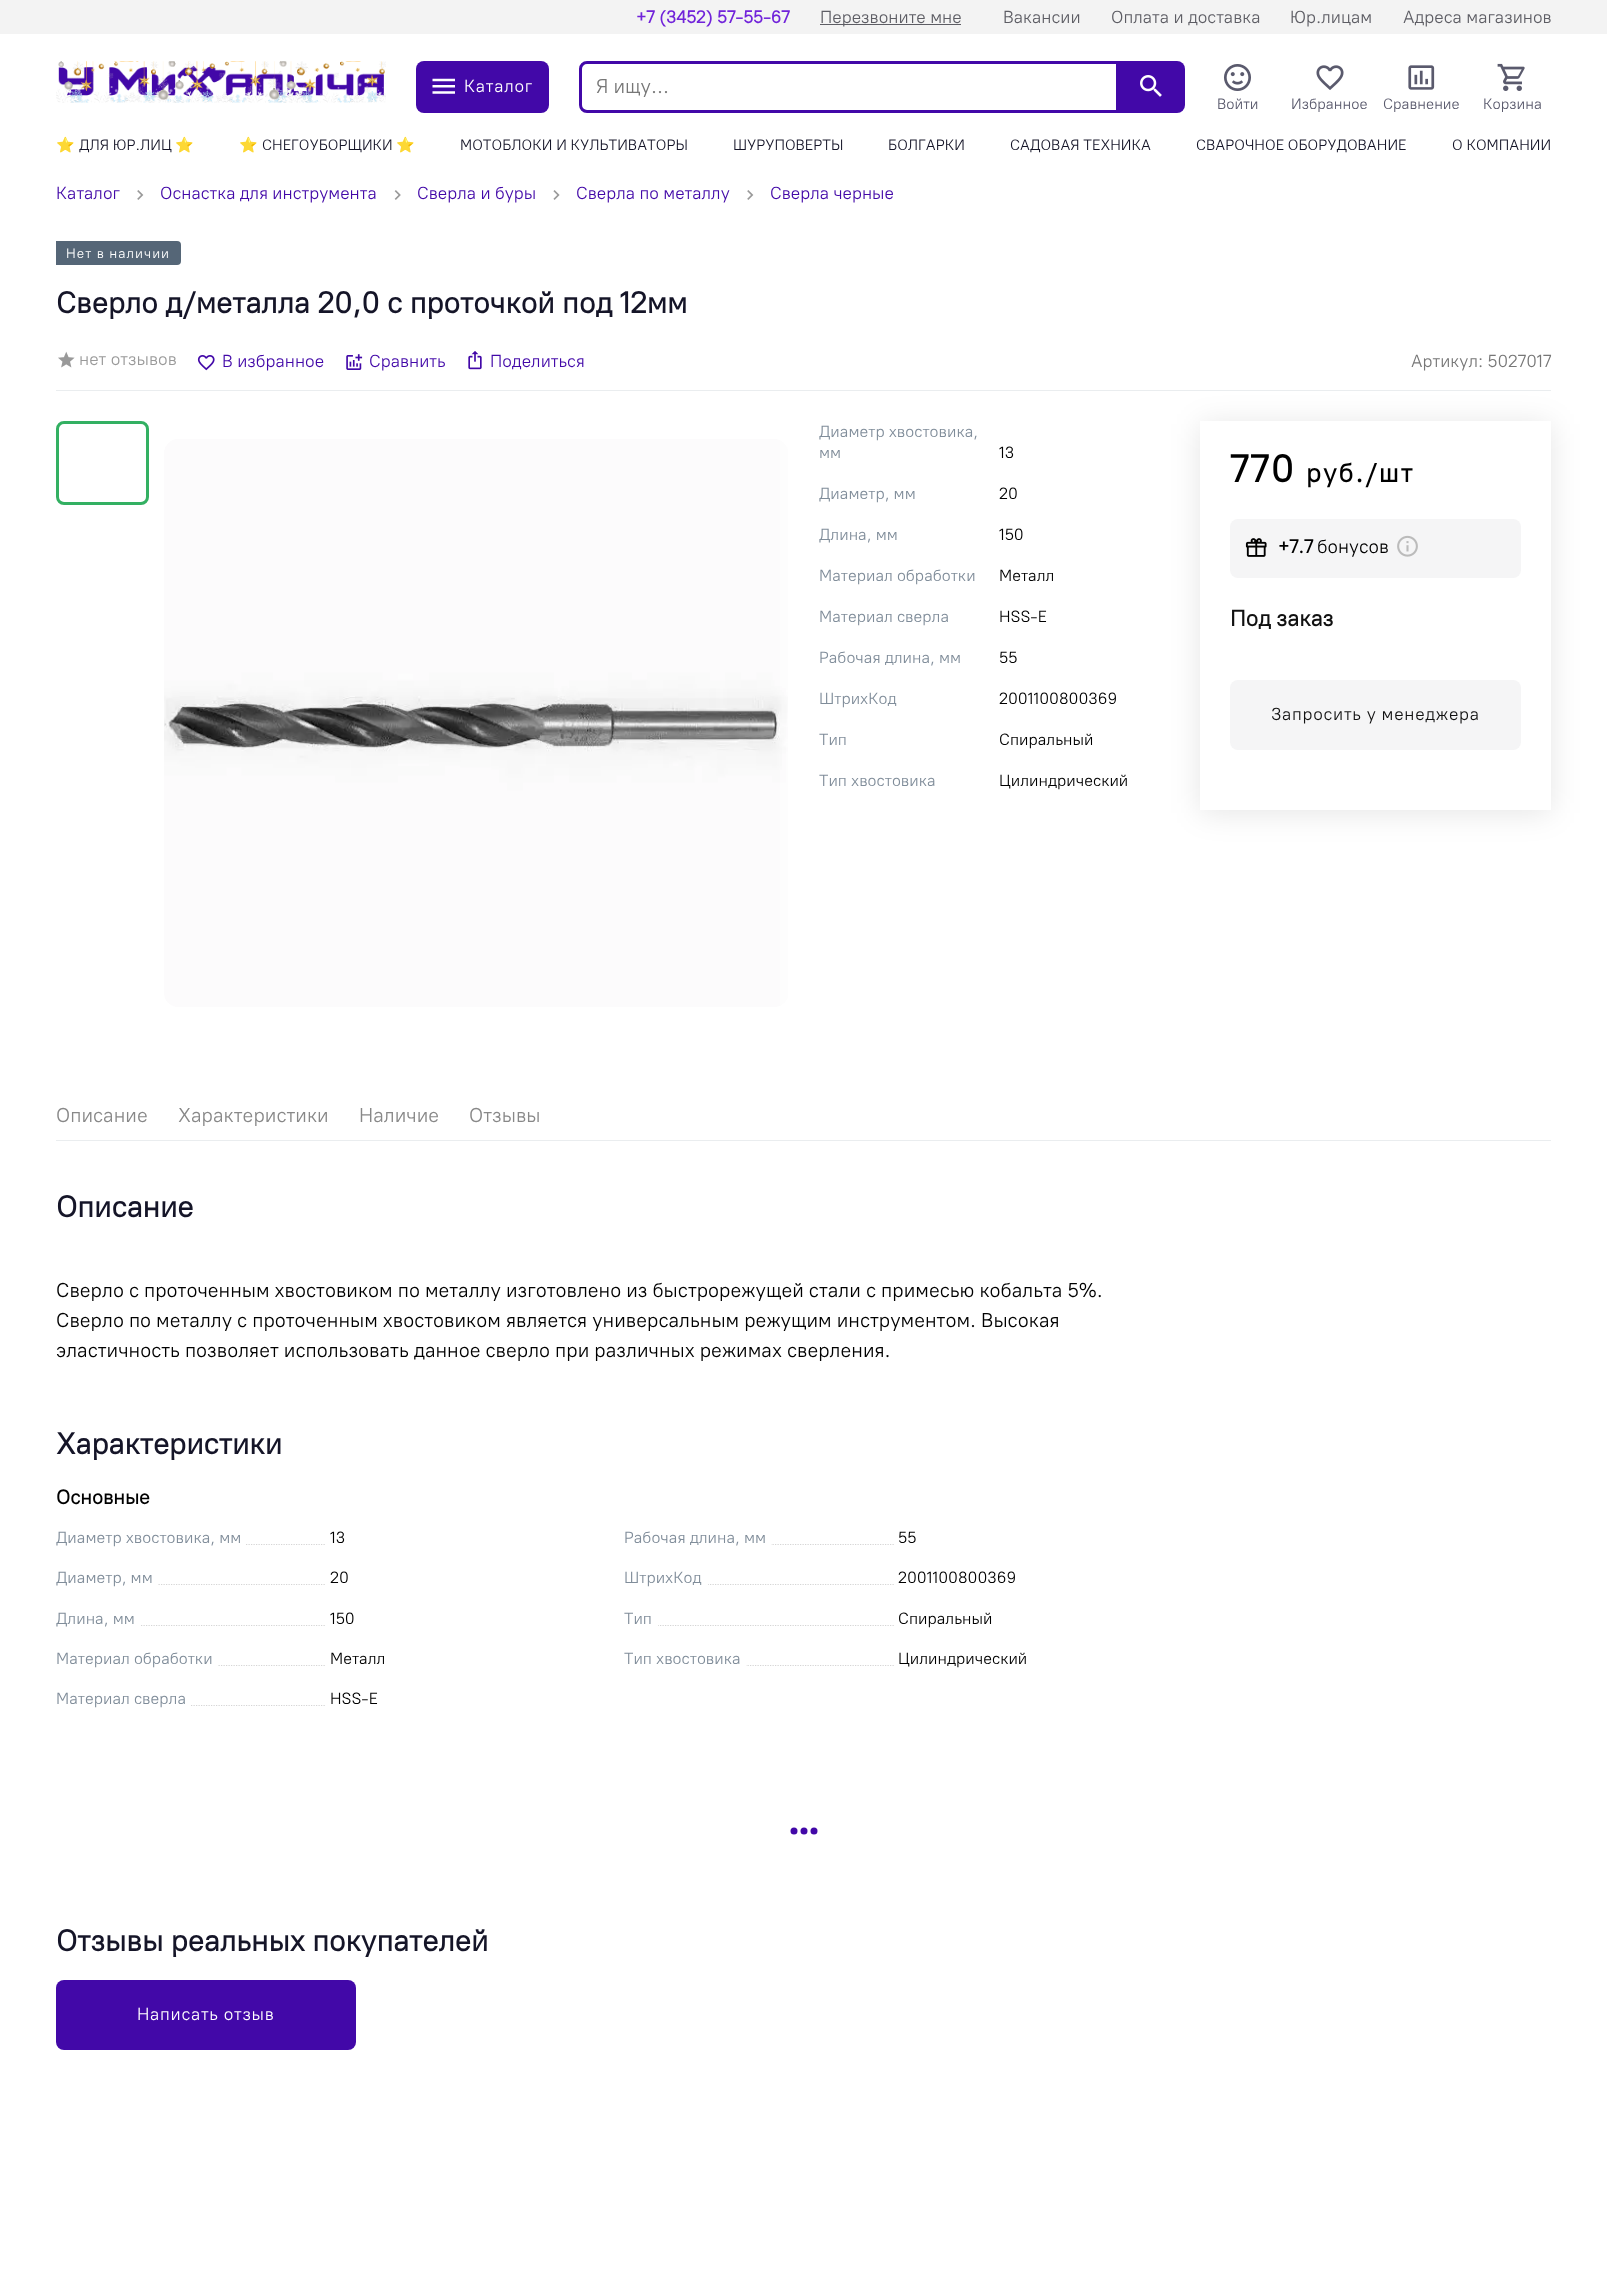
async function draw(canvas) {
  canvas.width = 1607;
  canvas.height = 2293;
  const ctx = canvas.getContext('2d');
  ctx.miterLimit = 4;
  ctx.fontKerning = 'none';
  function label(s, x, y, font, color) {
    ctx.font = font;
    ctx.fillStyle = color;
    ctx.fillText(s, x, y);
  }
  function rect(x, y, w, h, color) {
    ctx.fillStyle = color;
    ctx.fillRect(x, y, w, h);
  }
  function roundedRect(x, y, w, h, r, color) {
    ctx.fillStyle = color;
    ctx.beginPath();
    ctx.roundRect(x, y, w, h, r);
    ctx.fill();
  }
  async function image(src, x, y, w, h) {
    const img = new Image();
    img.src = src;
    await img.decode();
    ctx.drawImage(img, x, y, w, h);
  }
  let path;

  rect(0, 0, 1607, 2293, '#fff');
  rect(0, 0, 1607, 34, '#f3f3f3');
  label('+7 (3452) 57-55-67', 636, 23, 'bold 17.5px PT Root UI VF', '#7123da');
  rect(820, 24, 141, 1, '#5d5d64');
  label('Перезвоните мне', 820, 23, '17.5px PT Root UI VF', '#5d5d64');
  label('Вакансии', 1003, 23, '17.5px PT Root UI VF', '#5d5d64');
  label('Оплата и доставка', 1111, 23, '17.5px PT Root UI VF', '#5d5d64');
  label('Юр.лицам', 1290, 23, '17.5px PT Root UI VF', '#5d5d64');
  label('Адреса магазинов', 1403, 23, '17.5px PT Root UI VF', '#5d5d64');
  await image('assets/img1.png', 56, 61, 330, 42);
  roundedRect(416, 61, 133, 52, 8, '#4208a8');
  await image('assets/img2.png', 432, 78, 23, 16);
  ctx.letterSpacing = '0.7px';
  label('Каталог', 464, 92, '17.5px PT Root UI VF', '#fff');
  ctx.beginPath();
  ctx.roundRect(580.5, 62.5, 537, 49, [6.5, 0, 0, 6.5]);
  ctx.strokeStyle = '#4208a8';
  ctx.lineWidth = 3;
  ctx.stroke();
  ctx.letterSpacing = '0px';
  label('Я ищу...', 596, 93, '20px PT Root UI VF', '#777');
  ctx.fillStyle = '#4208a8';
  ctx.beginPath();
  ctx.roundRect(1119, 61, 66, 52, [0, 8, 8, 0]);
  ctx.fill();
  await image('assets/img3.png', 1140, 75, 22, 22);
  await image('assets/img4.png', 1224, 64, 27, 27);
  label('Войти', 1217, 109, '15px PT Root UI VF', '#5a5a6d');
  await image('assets/img5.png', 1316, 65, 28, 25);
  label('Избранное', 1291, 109, '15px PT Root UI VF', '#5a5a6d');
  await image('assets/img6.png', 1408, 65, 27, 25);
  label('Сравнение', 1383, 109, '15px PT Root UI VF', '#5a5a6d');
  await image('assets/img7.png', 1497, 63, 28, 28);
  label('Корзина', 1483, 109, '15px PT Root UI VF', '#5a5a6d');
  label('⭐', 56, 150, '15px Noto Color Emoji', '#151528');
  label('ДЛЯ ЮР.ЛИЦ', 79, 150, '15px PT Root UI VF', '#151528');
  label('⭐', 175, 150, '15px Noto Color Emoji', '#151528');
  label('⭐', 239, 150, '15px Noto Color Emoji', '#151528');
  label('СНЕГОУБОРЩИКИ', 262, 150, '15px PT Root UI VF', '#151528');
  label('⭐', 396, 150, '15px Noto Color Emoji', '#151528');
  label('МОТОБЛОКИ И КУЛЬТИВАТОРЫ', 460, 150, '15px PT Root UI VF', '#151528');
  label('ШУРУПОВЕРТЫ', 733, 150, '15px PT Root UI VF', '#151528');
  label('БОЛГАРКИ', 888, 150, '15px PT Root UI VF', '#151528');
  label('САДОВАЯ ТЕХНИКА', 1010, 150, '15px PT Root UI VF', '#151528');
  label('СВАРОЧНОЕ ОБОРУДОВАНИЕ', 1196, 150, '15px PT Root UI VF', '#151528');
  label('О КОМПАНИИ', 1452, 150, '15px PT Root UI VF', '#151528');
  label('Каталог', 56, 199, '17.5px PT Root UI VF', '#4208a8');
  await image('assets/img8.png', 137, 190, 7, 10);
  label('Оснастка для инструмента', 160, 199, '17.5px PT Root UI VF', '#4208a8');
  await image('assets/img9.png', 394, 190, 7, 10);
  label('Сверла и буры', 417, 199, '17.5px PT Root UI VF', '#4208a8');
  await image('assets/img10.png', 553, 190, 7, 10);
  label('Сверла по металлу', 576, 199, '17.5px PT Root UI VF', '#4208a8');
  await image('assets/img8.png', 747, 190, 7, 10);
  label('Сверла черные', 770, 199, '17.5px PT Root UI VF', '#4208a8');
  ctx.fillStyle = '#567';
  ctx.beginPath();
  ctx.roundRect(56, 241, 125, 24, [0, 4, 4, 0]);
  ctx.fill();
  ctx.letterSpacing = '1px';
  label('Нет в наличии', 66, 258, '13.75px PT Root UI VF', '#fff');
  ctx.letterSpacing = '0px';
  label('Сверло д/металла 20,0 с проточкой под 12мм', 56, 313, 'bold 30px PT Root UI VF', '#151528');
  rect(56, 390, 1495, 1, '#eaedef');
  await image('assets/img11.png', 58, 351, 17, 17);
  label('нет отзывов', 79, 365, '17.5px PT Root UI VF', '#999');
  await image('assets/img12.png', 197, 355, 18, 16);
  label('В избранное', 222, 367, '17.5px PT Root UI VF', '#4208a8');
  await image('assets/img13.png', 346, 354, 17, 16);
  label('Сравнить', 369, 367, '17.5px PT Root UI VF', '#4208a8');
  await image('assets/img14.png', 468, 351, 14, 19);
  label('Поделиться', 490, 367, '17.5px PT Root UI VF', '#4208a8');
  label('Артикул: 5027017', 1411, 367, '17.5px PT Root UI VF', '#777');
  ctx.beginPath();
  ctx.roundRect(57.5, 422.5, 90, 81, 6.5);
  ctx.strokeStyle = '#33b062';
  ctx.stroke();
  await image('assets/img15.png', 164, 439, 624, 568);
  label('Диаметр хвостовика,', 819, 437, '16.25px PT Root UI VF', '#808d9a');
  label('мм', 819, 458, '16.25px PT Root UI VF', '#808d9a');
  label('13', 999, 458, '16.25px PT Root UI VF', '#000');
  label('Диаметр, мм', 819, 499, '16.25px PT Root UI VF', '#808d9a');
  label('20', 999, 499, '16.25px PT Root UI VF', '#000');
  label('Длина, мм', 819, 540, '16.25px PT Root UI VF', '#808d9a');
  label('150', 999, 540, '16.25px PT Root UI VF', '#000');
  label('Материал обработки', 819, 581, '16.25px PT Root UI VF', '#808d9a');
  label('Металл', 999, 581, '16.25px PT Root UI VF', '#000');
  label('Материал сверла', 819, 622, '16.25px PT Root UI VF', '#808d9a');
  label('HSS-E', 999, 622, '16.25px PT Root UI VF', '#000');
  label('Рабочая длина, мм', 819, 663, '16.25px PT Root UI VF', '#808d9a');
  label('55', 999, 663, '16.25px PT Root UI VF', '#000');
  label('ШтрихКод', 819, 704, '16.25px PT Root UI VF', '#808d9a');
  label('2001100800369', 999, 704, '16.25px PT Root UI VF', '#000');
  label('Тип', 819, 745, '16.25px PT Root UI VF', '#808d9a');
  label('Спиральный', 999, 745, '16.25px PT Root UI VF', '#000');
  label('Тип хвостовика', 819, 786, '16.25px PT Root UI VF', '#808d9a');
  label('Цилиндрический', 999, 786, '16.25px PT Root UI VF', '#000');
  ctx.save();
  path = new Path2D('M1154 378H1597V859H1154ZM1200 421H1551V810H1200Z');
  ctx.clip(path, 'evenodd');
  ctx.fillStyle = '#0000001a';
  ctx.filter = 'blur(15px)';
  ctx.beginPath();
  ctx.rect(1200, 424, 351, 389);
  ctx.fill();
  ctx.filter = 'none';
  ctx.restore();
  ctx.letterSpacing = '2px';
  label('770', 1230, 482, 'bold 38px PT Root UI VF', '#000');
  label('руб./шт', 1306, 482, 'bold 26.25px PT Root UI VF', '#000');
  roundedRect(1230, 519, 291, 59, 8, '#f5f5f6');
  await image('assets/img16.png', 1245, 538, 22, 19);
  ctx.letterSpacing = '0px';
  label('+7.7', 1278, 553, 'bold 19px PT Root UI VF', '#000');
  label('бонусов', 1317, 553, '19px PT Root UI VF', '#000');
  await image('assets/img17.png', 1397, 535, 21, 22);
  label('Под заказ', 1230, 626, 'bold 22.5px PT Root UI VF', '#111');
  roundedRect(1230, 680, 291, 70, 8, '#f5f5f6');
  ctx.letterSpacing = '0.7px';
  label('Запросить у менеджера', 1271, 720, '17.5px PT Root UI VF', '#111');
  rect(56, 1140, 1495, 1, '#eaedef');
  ctx.letterSpacing = '0px';
  label('Описание', 56, 1122, '20px PT Root UI VF', '#888');
  label('Характеристики', 178, 1122, '20px PT Root UI VF', '#888');
  label('Наличие', 359, 1122, '20px PT Root UI VF', '#888');
  label('Отзывы', 469, 1122, '20px PT Root UI VF', '#888');
  label('Описание', 56, 1217, 'bold 30px PT Root UI VF', '#151528');
  label('Сверло с проточенным хвостовиком по металлу изготовлено из быстрорежущей стали', 56, 1297, '20px PT Root UI VF', '#000');
  label('с примесью кобальта 5%.', 866, 1297, '20px PT Root UI VF', '#000');
  label('Сверло по металлу с проточенным хвостовиком является универсальным режущим инструментом.', 56, 1327, '20px PT Root UI VF', '#000');
  label('Высокая', 981, 1327, '20px PT Root UI VF', '#000');
  label('эластичность позволяет использовать данное сверло при различных режимах сверления.', 56, 1357, '20px PT Root UI VF', '#000');
  label('Характеристики', 56, 1454, 'bold 30px PT Root UI VF', '#151528');
  label('Основные', 56, 1504, 'bold 20px PT Root UI VF', '#000');
  path = new Path2D('M56 1544.5H325');
  ctx.strokeStyle = '#d5d5d5';
  ctx.lineWidth = 1.2;
  ctx.setLineDash([1.25, 1.25]);
  ctx.stroke(path);
  rect(56, 1543, 189, 3, '#fff');
  label('Диаметр хвостовика, мм', 56, 1543, '16.25px PT Root UI VF', '#808d9a');
  label('13', 330, 1543, '16.25px PT Root UI VF', '#000');
  path = new Path2D('M56 1584.5H325');
  ctx.stroke(path);
  rect(56, 1583, 102, 3, '#fff');
  label('Диаметр, мм', 56, 1583, '16.25px PT Root UI VF', '#808d9a');
  label('20', 330, 1583, '16.25px PT Root UI VF', '#000');
  path = new Path2D('M56 1625.5H325');
  ctx.stroke(path);
  rect(56, 1624, 84, 3, '#fff');
  label('Длина, мм', 56, 1624, '16.25px PT Root UI VF', '#808d9a');
  label('150', 330, 1624, '16.25px PT Root UI VF', '#000');
  path = new Path2D('M56 1665.5H325');
  ctx.stroke(path);
  rect(56, 1664, 162, 3, '#fff');
  label('Материал обработки', 56, 1664, '16.25px PT Root UI VF', '#808d9a');
  label('Металл', 330, 1664, '16.25px PT Root UI VF', '#000');
  path = new Path2D('M56 1705.5H325');
  ctx.stroke(path);
  rect(56, 1704, 134, 3, '#fff');
  label('Материал сверла', 56, 1704, '16.25px PT Root UI VF', '#808d9a');
  label('HSS-E', 330, 1704, '16.25px PT Root UI VF', '#000');
  path = new Path2D('M625 1544.5H894');
  ctx.stroke(path);
  rect(625, 1543, 146, 3, '#fff');
  label('Рабочая длина, мм', 624, 1543, '16.25px PT Root UI VF', '#808d9a');
  label('55', 898, 1543, '16.25px PT Root UI VF', '#000');
  path = new Path2D('M625 1584.5H894');
  ctx.stroke(path);
  rect(625, 1583, 83, 3, '#fff');
  label('ШтрихКод', 624, 1583, '16.25px PT Root UI VF', '#808d9a');
  label('2001100800369', 898, 1583, '16.25px PT Root UI VF', '#000');
  path = new Path2D('M625 1625.5H894');
  ctx.stroke(path);
  rect(625, 1624, 33, 3, '#fff');
  label('Тип', 624, 1624, '16.25px PT Root UI VF', '#808d9a');
  label('Спиральный', 898, 1624, '16.25px PT Root UI VF', '#000');
  path = new Path2D('M625 1665.5H894');
  ctx.stroke(path);
  rect(625, 1664, 121, 3, '#fff');
  label('Тип хвостовика', 624, 1664, '16.25px PT Root UI VF', '#808d9a');
  label('Цилиндрический', 898, 1664, '16.25px PT Root UI VF', '#000');
  ctx.fillStyle = '#4208a8';
  ctx.beginPath();
  ctx.arc(794, 1831, 3.5, 0, 2 * Math.PI);
  ctx.fill();
  ctx.beginPath();
  ctx.arc(804, 1831, 3.5, 0, 2 * Math.PI);
  ctx.fill();
  ctx.beginPath();
  ctx.arc(814, 1831, 3.5, 0, 2 * Math.PI);
  ctx.fill();
  label('Отзывы реальных покупателей', 56, 1951, 'bold 30px PT Root UI VF', '#151528');
  roundedRect(56, 1980, 300, 70, 8, '#4208a8');
  ctx.letterSpacing = '0.7px';
  label('Написать отзыв', 137, 2020, '17.5px PT Root UI VF', '#fff');
}

draw(document.querySelector('canvas'));
